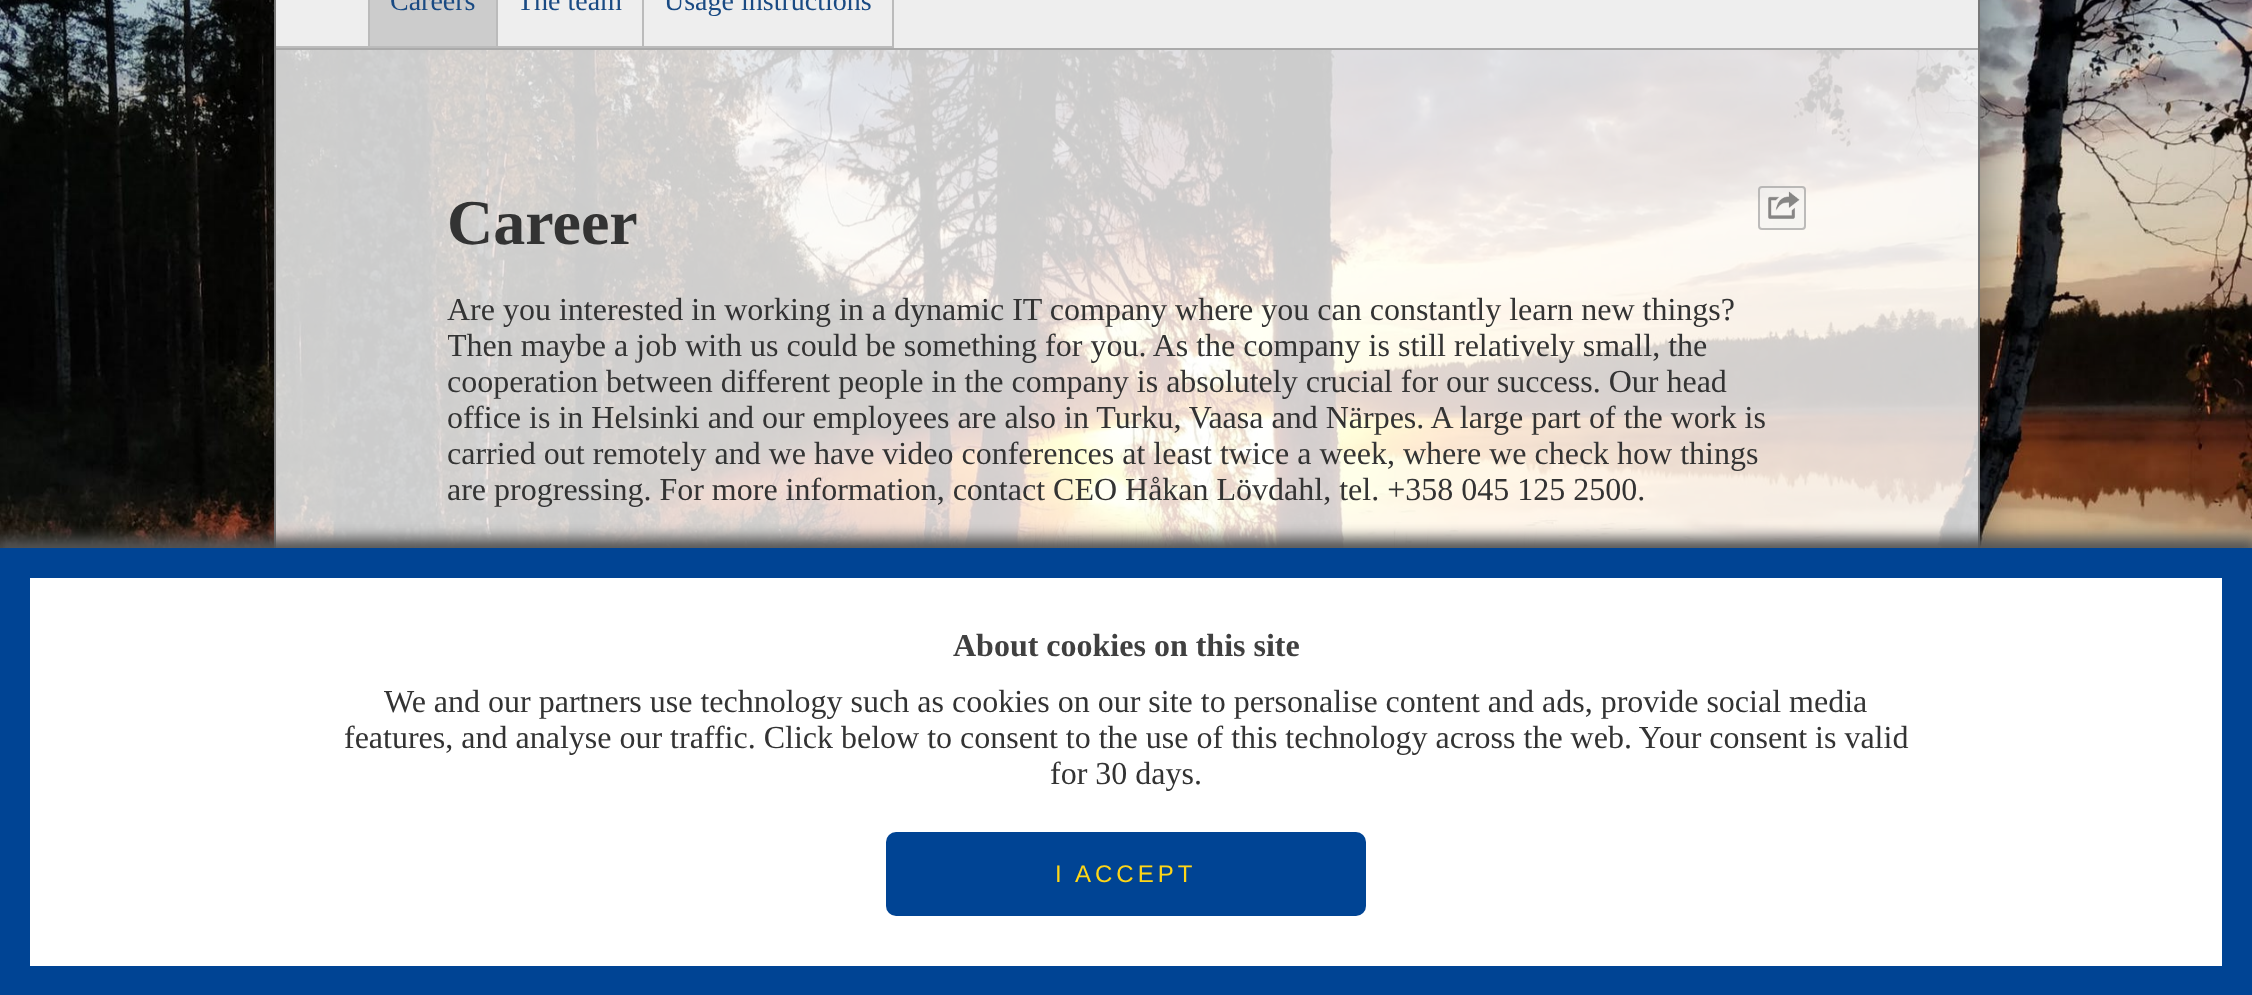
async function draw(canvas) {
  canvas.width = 2252;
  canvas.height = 995;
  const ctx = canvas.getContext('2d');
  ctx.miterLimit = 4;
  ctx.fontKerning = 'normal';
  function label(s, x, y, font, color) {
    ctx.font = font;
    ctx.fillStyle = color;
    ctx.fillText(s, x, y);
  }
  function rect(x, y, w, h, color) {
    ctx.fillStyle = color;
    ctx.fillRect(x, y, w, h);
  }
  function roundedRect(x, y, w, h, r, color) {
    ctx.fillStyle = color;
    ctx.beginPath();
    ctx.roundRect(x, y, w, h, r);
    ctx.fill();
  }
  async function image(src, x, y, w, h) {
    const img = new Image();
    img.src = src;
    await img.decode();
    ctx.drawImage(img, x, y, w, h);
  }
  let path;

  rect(0, 0, 2252, 995, '#fff');
  await image('assets/img1.png', 0, 0, 2252, 548);
  ctx.save();
  path = new Path2D('M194 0H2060V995H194ZM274-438H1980V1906H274Z');
  ctx.clip(path, 'evenodd');
  ctx.fillStyle = '#00000066';
  ctx.filter = 'blur(25px)';
  ctx.beginPath();
  ctx.rect(270, -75, 1714, 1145);
  ctx.fill();
  ctx.filter = 'none';
  ctx.restore();
  rect(1978, 0, 2, 548, '#777');
  rect(274, 0, 2, 548, '#777');
  rect(276, 0, 1702, 48, '#eee');
  rect(276, 48, 1702, 2, '#aaa');
  rect(368, 0, 2, 48, '#bbb');
  rect(276, 46, 94, 2, '#bbb');
  rect(370, 0, 126, 46, '#ccc');
  rect(496, 0, 2, 48, '#bbb');
  rect(370, 46, 128, 2, '#bbb');
  label('Careers', 390, 10, '28px Liberation Serif', '#194a83');
  rect(642, 0, 2, 48, '#bbb');
  rect(498, 46, 146, 2, '#bbb');
  label('The team', 517, 10, '28px Liberation Serif', '#194a83');
  rect(892, 0, 2, 48, '#bbb');
  rect(644, 46, 250, 2, '#bbb');
  label('Usage instructions', 664, 10, '28px Liberation Serif', '#194a83');
  rect(276, 50, 1702, 498, '#ffffffcc');
  label('Career', 447, 244, 'bold 64px Liberation Serif', '#333');
  roundedRect(1758, 186, 48, 44, 4, '#efefef73');
  ctx.beginPath();
  ctx.roundRect(1759, 187, 46, 42, 3);
  ctx.strokeStyle = '#76767673';
  ctx.lineWidth = 2;
  ctx.stroke();
  await image('assets/img2.png', 1768, 191, 32, 28);
  label('Are you interested in working in a dynamic IT company where you can constantly learn new things?', 447, 320, '32px Liberation Serif', '#333');
  ctx.save();
  ctx.beginPath();
  ctx.rect(448, 122, 1358, 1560);
  ctx.clip();
  label('Then maybe a job with us could be something for you. As the company is still relatively small, the', 447, 356, '32px Liberation Serif', '#333');
  ctx.restore();
  label('cooperation between different people in the company is absolutely crucial for our success. Our head', 447, 392, '32px Liberation Serif', '#333');
  label('office is in Helsinki and our employees are also in Turku, Vaasa and Närpes. A large part of the work is', 447, 428, '32px Liberation Serif', '#333');
  label('carried out remotely and we have video conferences at least twice a week, where we check how things', 447, 464, '32px Liberation Serif', '#333');
  label('are progressing. For more information, contact CEO Håkan Lövdahl, tel. +358 045 125 2500.', 447, 500, '32px Liberation Serif', '#333');
  ctx.fillStyle = '#555';
  ctx.filter = 'blur(7px)';
  ctx.beginPath();
  ctx.rect(-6, 538, 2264, 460);
  ctx.fill();
  ctx.filter = 'none';
  ctx.fillStyle = '#fff';
  ctx.beginPath();
  ctx.rect(15, 563, 2222, 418);
  ctx.fill();
  ctx.strokeStyle = '#004494';
  ctx.lineWidth = 30;
  ctx.stroke();
  label('About cookies on this site', 953, 656, 'bold 32px Liberation Serif', '#404040');
  label('We and our partners use technology such as cookies on our site to personalise content and ads, provide social media', 384, 712, '32px Liberation Serif', '#333');
  label('features, and analyse our traffic. Click below to consent to the use of this technology across the web. Your consent is valid', 344, 748, '32px Liberation Serif', '#333');
  label('for 30 days.', 1050, 784, '32px Liberation Serif', '#333');
  roundedRect(886, 832, 480, 84, 10, '#004494');
  ctx.letterSpacing = '4px';
  label('I ACCEPT', 1055, 882, '24px Liberation Sans', '#ffd617');
}

draw(document.querySelector('canvas'));
